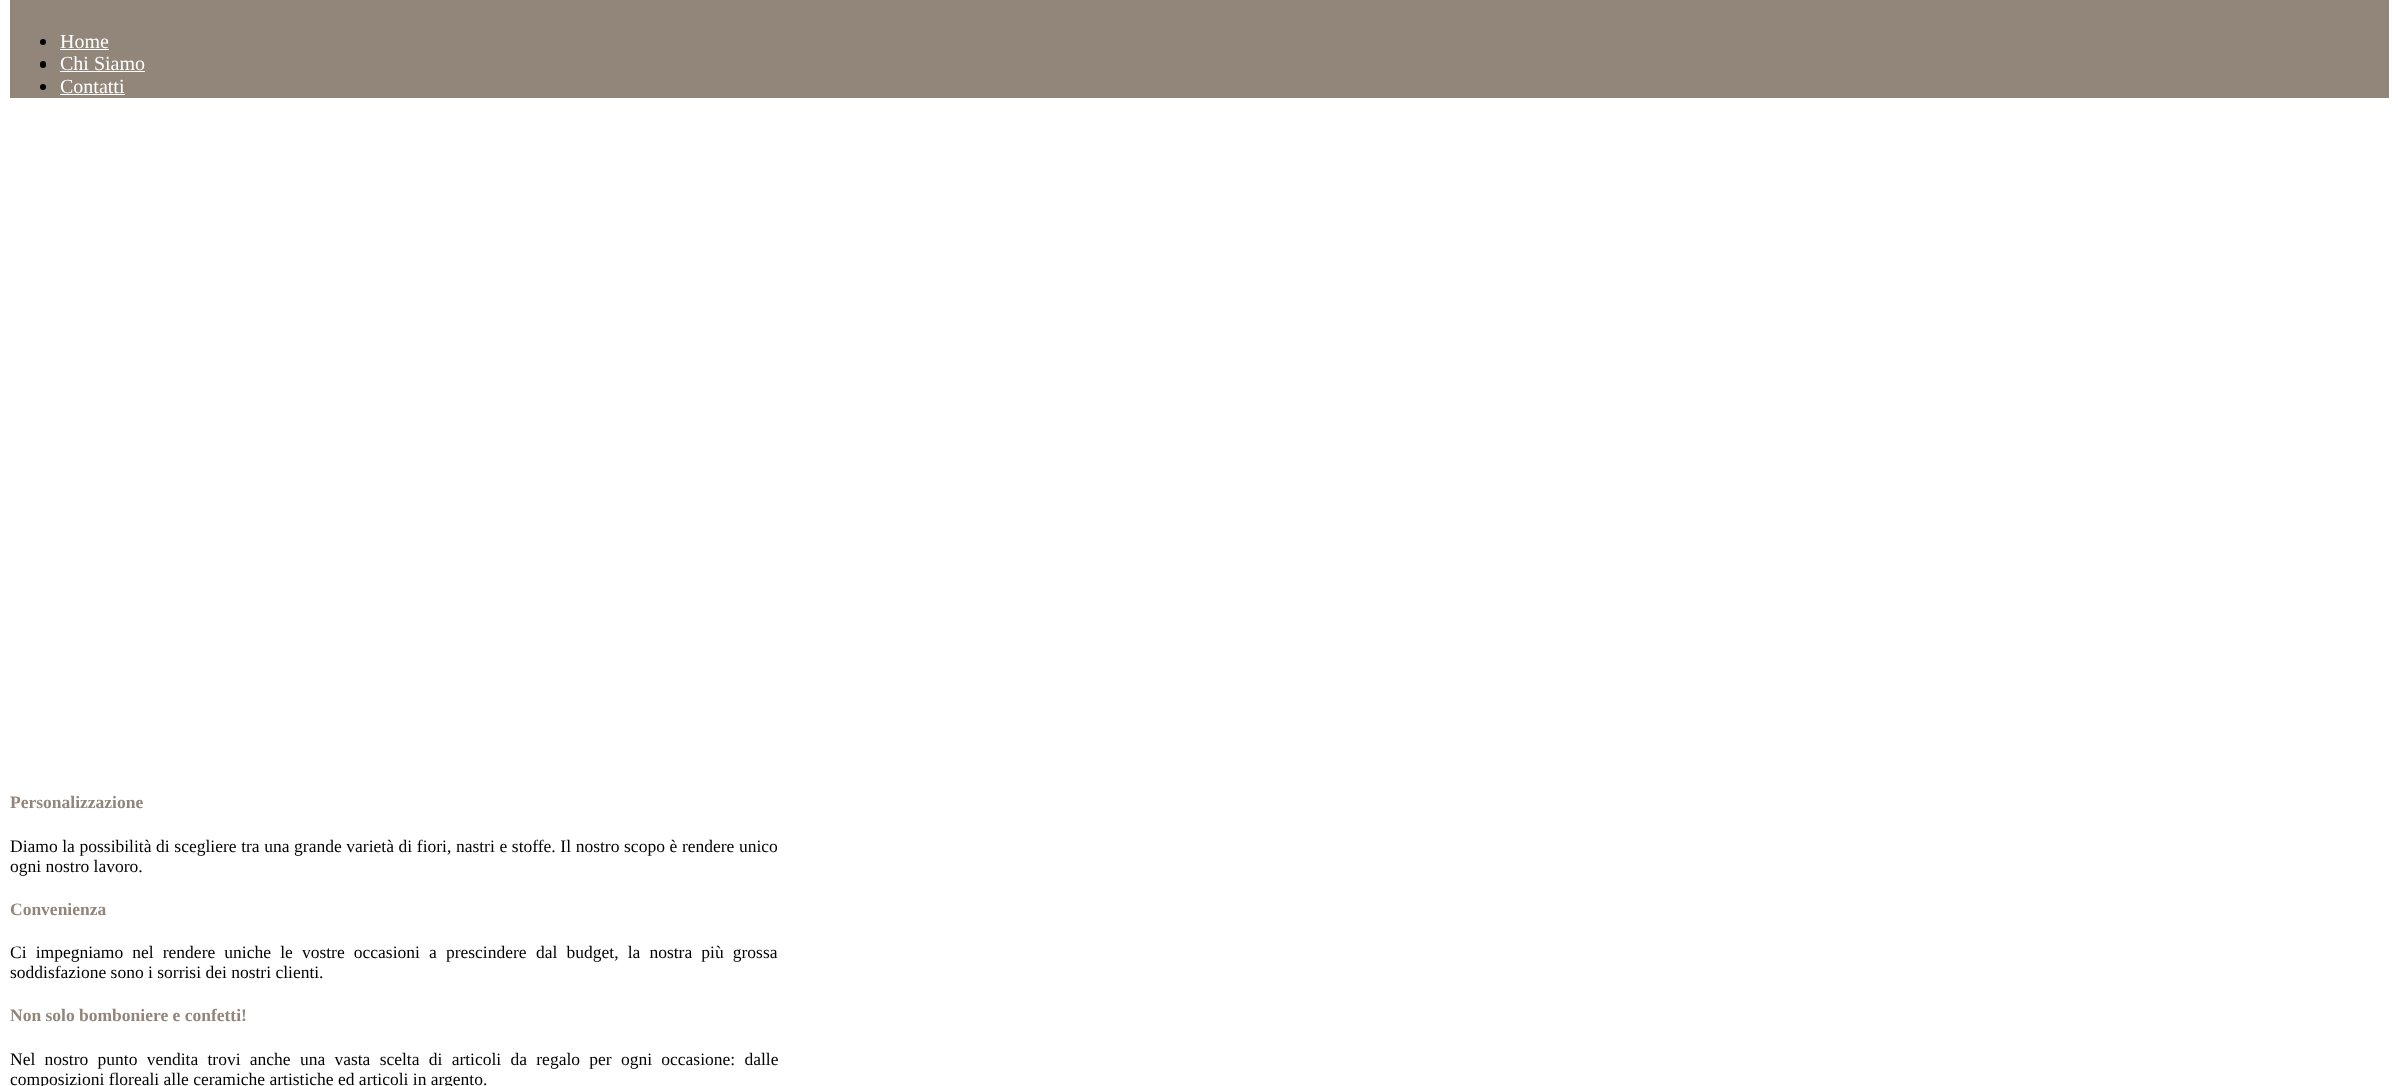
async function draw(canvas) {
  canvas.width = 2398;
  canvas.height = 1086;
  const ctx = canvas.getContext('2d');
  ctx.miterLimit = 4;
  ctx.fontKerning = 'normal';
  function label(s, x, y, font, color) {
    ctx.font = font;
    ctx.fillStyle = color;
    ctx.fillText(s, x, y);
  }
  function rect(x, y, w, h, color) {
    ctx.fillStyle = color;
    ctx.fillRect(x, y, w, h);
  }
  function roundedRect(x, y, w, h, r, color) {
    ctx.fillStyle = color;
    ctx.beginPath();
    ctx.roundRect(x, y, w, h, r);
    ctx.fill();
  }

  rect(0, 0, 2398, 1086, '#fff');
  rect(10, 0, 2379, 98, '#92867b');
  ctx.fillStyle = '#000';
  ctx.beginPath();
  ctx.arc(43, 42, 3, 0, 2 * Math.PI);
  ctx.fill();
  label('Home', 60, 48, '20px Liberation Serif', '#fff');
  rect(60, 49, 49, 1, '#fff');
  roundedRect(40, 61, 6, 7, 3, '#000');
  label('Chi Siamo', 60, 70, '20px Liberation Serif', '#fff');
  rect(60, 71, 85, 1, '#fff');
  ctx.fillStyle = '#000';
  ctx.beginPath();
  ctx.arc(43, 87, 3, 0, 2 * Math.PI);
  ctx.fill();
  label('Contatti', 60, 93, '20px Liberation Serif', '#fff');
  rect(60, 94, 65, 1, '#fff');
  label('Personalizzazione', 10, 808, 'bold 17.5px Liberation Serif', '#92867b');
  ctx.wordSpacing = '0.25px';
  label('Diamo la possibilità di scegliere tra una grande varietà di fiori, nastri e stoffe. Il nostro scopo è rendere unico', 10, 852, '17.5px Liberation Serif', '#000');
  ctx.wordSpacing = '0px';
  label('ogni nostro lavoro.', 10, 872, '17.5px Liberation Serif', '#000');
  label('Convenienza', 10, 915, 'bold 17.5px Liberation Serif', '#92867b');
  ctx.wordSpacing = '4.75px';
  label('Ci impegniamo nel rendere uniche le vostre occasioni a prescindere', 10, 958, '17.5px Liberation Serif', '#000');
  label('dal budget, la nostra più grossa', 536, 958, '17.5px Liberation Serif', '#000');
  ctx.wordSpacing = '0px';
  label('soddisfazione sono i sorrisi dei nostri clienti.', 10, 978, '17.5px Liberation Serif', '#000');
  label('Non solo bomboniere e confetti!', 10, 1021, 'bold 17.5px Liberation Serif', '#92867b');
  ctx.wordSpacing = '4.9px';
  label('Nel nostro punto vendita trovi anche una vasta scelta di articoli da regalo per ogni occasione: dalle', 10, 1065, '17.5px Liberation Serif', '#000');
  ctx.wordSpacing = '0px';
  label('composizioni floreali alle ceramiche artistiche ed articoli in argento.', 10, 1085, '17.5px Liberation Serif', '#000');
}

draw(document.querySelector('canvas'));
